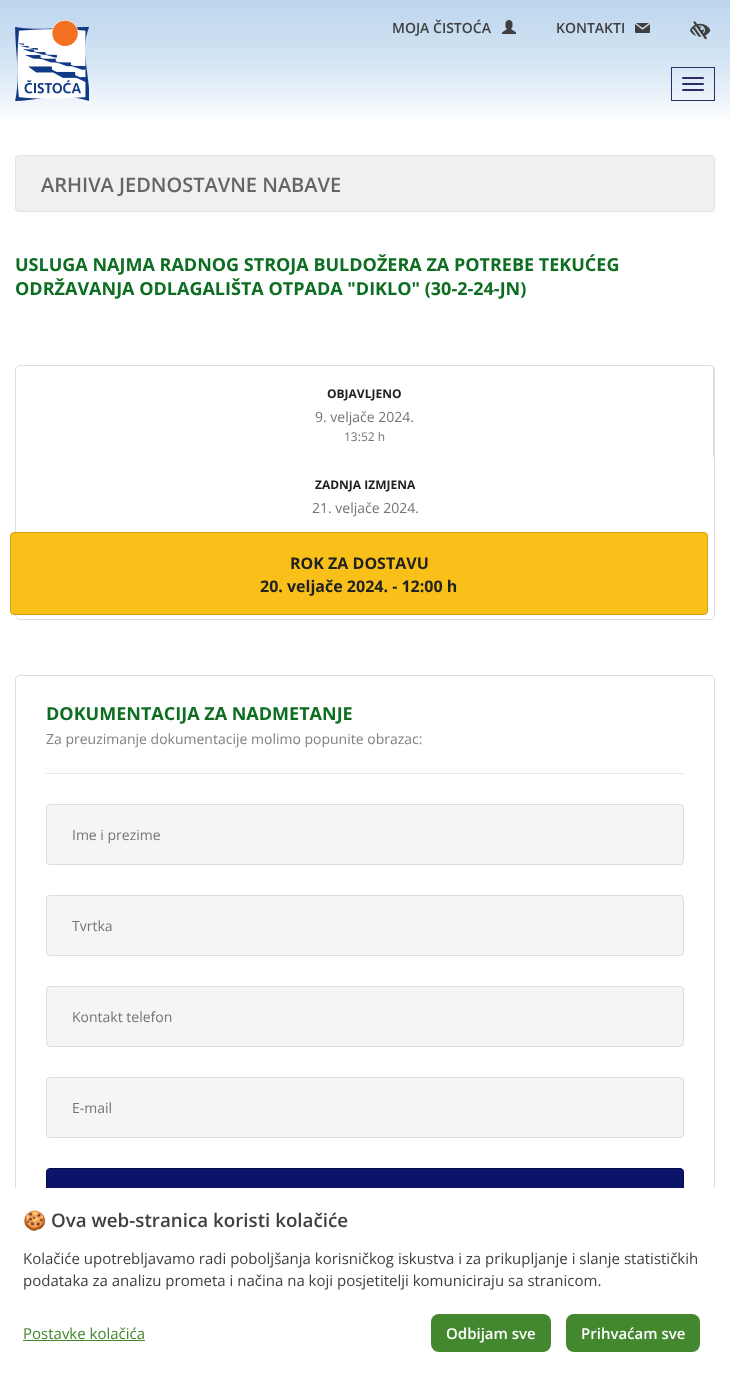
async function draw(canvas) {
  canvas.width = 730;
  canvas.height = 1374;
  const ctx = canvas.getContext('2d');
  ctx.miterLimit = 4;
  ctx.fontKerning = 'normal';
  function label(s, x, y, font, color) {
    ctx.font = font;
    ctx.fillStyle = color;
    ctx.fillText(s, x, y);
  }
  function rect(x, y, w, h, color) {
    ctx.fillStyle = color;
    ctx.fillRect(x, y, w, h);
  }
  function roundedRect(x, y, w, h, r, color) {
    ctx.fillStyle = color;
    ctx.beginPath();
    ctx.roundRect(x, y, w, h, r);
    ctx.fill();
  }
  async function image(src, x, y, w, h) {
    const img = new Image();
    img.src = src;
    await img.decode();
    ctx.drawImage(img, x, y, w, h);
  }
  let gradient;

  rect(0, 0, 730, 1374, '#fff');
  gradient = ctx.createLinearGradient(365, 0, 365, 125);
  gradient.addColorStop(0, '#bdd5ed');
  gradient.addColorStop(0.5, '#d4e5f4');
  gradient.addColorStop(1, '#fff');
  ctx.fillStyle = gradient;
  ctx.fillRect(0, 0, 730, 121);
  label('MOJA ČISTOĆA', 392, 33, '600 14px Open Sans', '#3f3f3f');
  await image('assets/img1.png', 502, 20, 14, 14);
  label('KONTAKTI', 556, 33, '600 14px Open Sans', '#3f3f3f');
  await image('assets/img2.png', 635, 23, 15, 10);
  await image('assets/img3.png', 690, 21, 21, 19);
  await image('assets/img4.png', 15, 20, 74, 81);
  ctx.strokeStyle = '#302b6b';
  ctx.strokeRect(671.5, 67.5, 43, 33);
  roundedRect(682, 77, 22, 2, 1, '#302b6b');
  roundedRect(682, 83, 22, 2, 1, '#302b6b');
  roundedRect(682, 89, 22, 2, 1, '#302b6b');
  ctx.fillStyle = '#f0f0f0';
  ctx.beginPath();
  ctx.roundRect(15.5, 155.5, 699, 56, 3.5);
  ctx.fill();
  ctx.strokeStyle = '#e2e2e2';
  ctx.stroke();
  label('ARHIVA JEDNOSTAVNE NABAVE', 41, 192, '600 20px Open Sans', '#656565');
  label('USLUGA NAJMA RADNOG STROJA BULDOŽERA ZA POTREBE TEKUĆEG', 15, 271, 'bold 18px Open Sans', '#0d6d21');
  label('ODRŽAVANJA ODLAGALIŠTA OTPADA "DIKLO" (30-2-24-JN)', 15, 295, 'bold 18px Open Sans', '#0d6d21');
  ctx.beginPath();
  ctx.roundRect(15.5, 365.5, 699, 254, 4.5);
  ctx.strokeStyle = '#ddd';
  ctx.stroke();
  rect(713, 366, 1, 91, '#ddd');
  label('OBJAVLJENO', 327, 398, 'bold 12px Open Sans', '#212121');
  label('9. veljače 2024.', 315, 422, '14px Open Sans', '#747474');
  label('13:52 h', 344, 441, '12px Open Sans', '#747474');
  label('ZADNJA IZMJENA', 315, 489, 'bold 12px Open Sans', '#212121');
  label('21. veljače 2024.', 312, 513, '14px Open Sans', '#747474');
  ctx.fillStyle = '#f8c018';
  ctx.beginPath();
  ctx.roundRect(10.5, 532.5, 697, 82, 3.5);
  ctx.fill();
  ctx.strokeStyle = '#d3a210';
  ctx.stroke();
  label('ROK ZA DOSTAVU', 290, 569, 'bold 16px Open Sans', '#212121');
  label('20. veljače 2024. - 12:00 h', 260, 592, 'bold 16px Open Sans', '#212121');
  ctx.beginPath();
  ctx.roundRect(15.5, 675.5, 699, 674, 4.5);
  ctx.strokeStyle = '#ddd';
  ctx.stroke();
  label('DOKUMENTACIJA ZA NADMETANJE', 46, 720, 'bold 18px Open Sans', '#0d6d21');
  label('Za preuzimanje dokumentacije molimo popunite obrazac:', 46, 744, '14px Open Sans', '#808080');
  rect(46, 773, 638, 1, '#e9e9e9');
  ctx.fillStyle = '#f5f5f5';
  ctx.beginPath();
  ctx.roundRect(46.5, 804.5, 637, 60, 3.5);
  ctx.fill();
  ctx.stroke();
  label('Ime i prezime', 72, 840, '14px Open Sans', '#747474');
  ctx.fillStyle = '#f5f5f5';
  ctx.beginPath();
  ctx.roundRect(46.5, 895.5, 637, 60, 3.5);
  ctx.fill();
  ctx.stroke();
  label('Tvrtka', 72, 931, '14px Open Sans', '#747474');
  ctx.fillStyle = '#f5f5f5';
  ctx.beginPath();
  ctx.roundRect(46.5, 986.5, 637, 60, 3.5);
  ctx.fill();
  ctx.stroke();
  label('Kontakt telefon', 72, 1022, '14px Open Sans', '#747474');
  ctx.fillStyle = '#f5f5f5';
  ctx.beginPath();
  ctx.roundRect(46.5, 1077.5, 637, 60, 3.5);
  ctx.fill();
  ctx.stroke();
  label('E-mail', 72, 1113, '14px Open Sans', '#747474');
  ctx.fillStyle = '#0b1469';
  ctx.beginPath();
  ctx.roundRect(46.5, 1168.5, 637, 104, 3.5);
  ctx.fill();
  ctx.strokeStyle = '#050c4d';
  ctx.stroke();
  rect(15, 1188, 700, 162, '#fff');
  label('🍪', 23, 1227, 'bold 18.75px Noto Color Emoji', '#3f3f3f');
  label('Ova web-stranica koristi kolačiće', 51, 1227, '600 18.75px Open Sans', '#3f3f3f');
  label('Kolačiće upotrebljavamo radi poboljšanja korisničkog iskustva i za prikupljanje i slanje statističkih', 23, 1264, '15px Open Sans', '#3f3f3f');
  label('podataka za analizu prometa i načina na koji posjetitelji komuniciraju sa stranicom.', 23, 1286, '15px Open Sans', '#3f3f3f');
  label('Postavke kolačića', 23, 1339, '15px Open Sans', '#43872e');
  rect(23, 1340, 122, 1, '#43872e');
  roundedRect(431, 1314, 120, 38, 8, '#43872e');
  label('Odbijam sve', 446, 1339, '600 15px Open Sans', '#fff');
  roundedRect(566, 1314, 134, 38, 8, '#43872e');
  label('Prihvaćam sve', 581, 1339, '600 15px Open Sans', '#fff');
}

draw(document.querySelector('canvas'));
